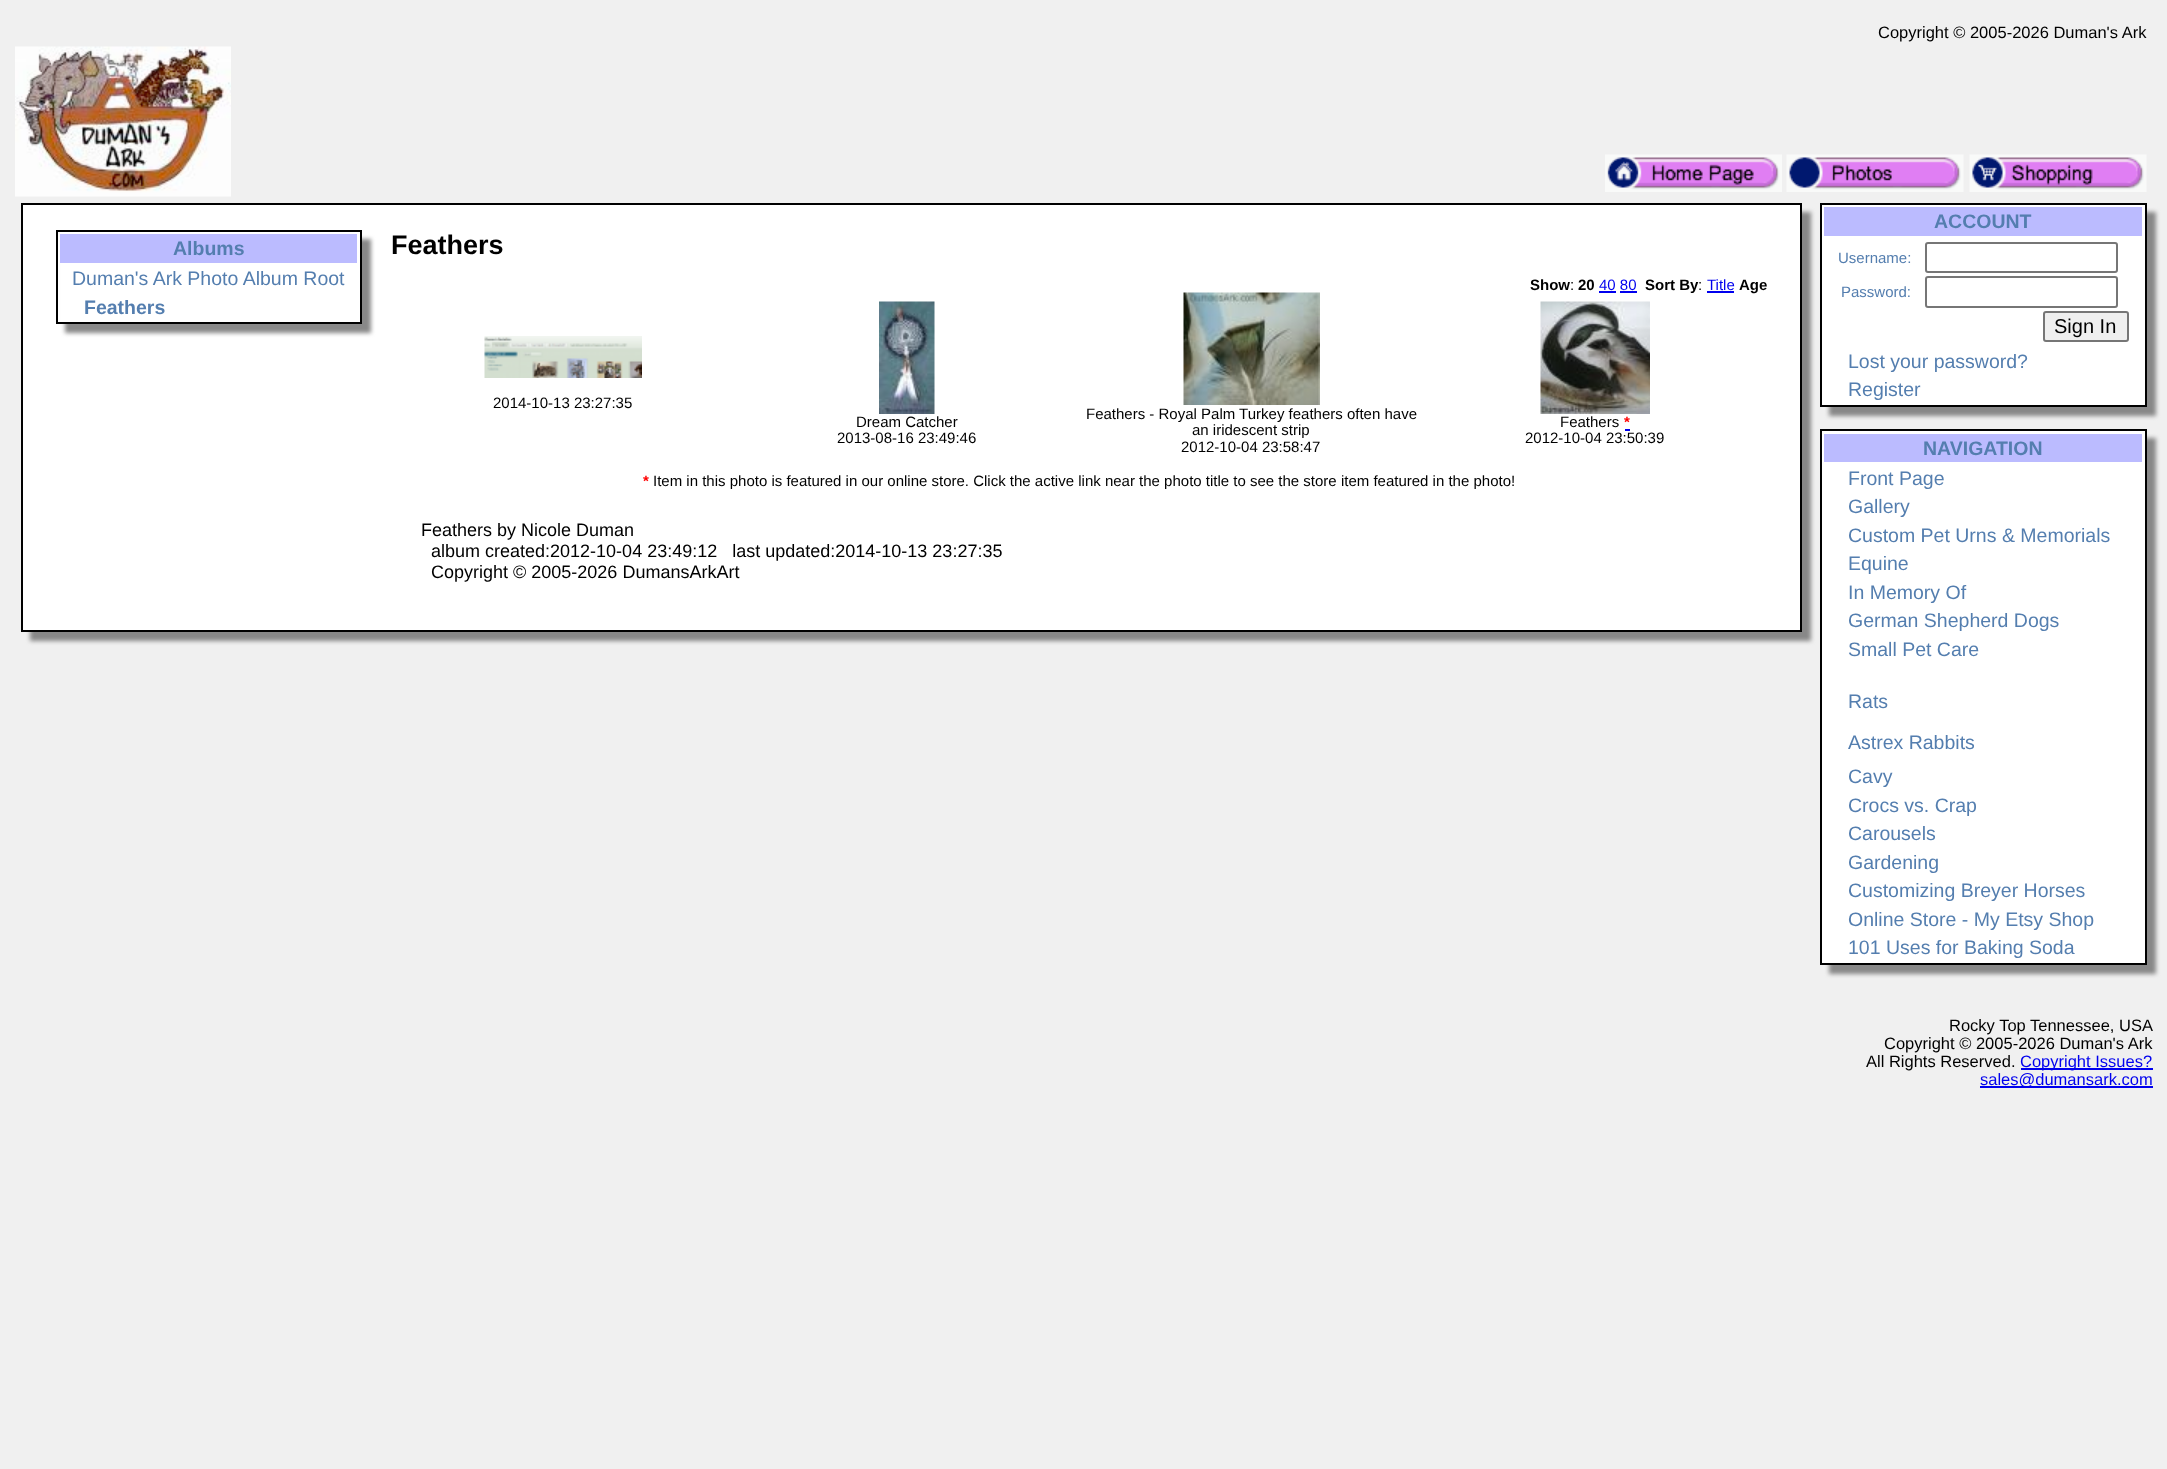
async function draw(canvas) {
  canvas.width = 2167;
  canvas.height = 1469;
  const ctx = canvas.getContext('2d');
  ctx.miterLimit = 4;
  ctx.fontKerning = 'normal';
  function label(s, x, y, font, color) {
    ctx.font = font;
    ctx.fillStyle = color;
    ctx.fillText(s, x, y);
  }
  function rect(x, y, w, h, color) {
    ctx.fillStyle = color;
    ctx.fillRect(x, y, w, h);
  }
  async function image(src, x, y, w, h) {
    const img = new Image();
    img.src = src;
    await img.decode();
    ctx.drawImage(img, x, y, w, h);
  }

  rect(0, 0, 2167, 1469, '#f0f0f0');
  label('Copyright © 2005-2026 Duman\'s Ark', 1878, 38, '16.5px Liberation Sans', '#000');
  await image('assets/img1.png', 15, 46, 216, 151);
  await image('assets/img2.png', 1605, 154, 177, 38);
  await image('assets/img3.png', 1786, 154, 178, 38);
  await image('assets/img4.png', 1969, 154, 178, 38);
  ctx.fillStyle = '#888';
  ctx.filter = 'blur(2px)';
  ctx.beginPath();
  ctx.rect(30, 212, 1781, 429);
  ctx.fill();
  ctx.filter = 'none';
  ctx.fillStyle = '#fff';
  ctx.beginPath();
  ctx.rect(22, 204, 1779, 427);
  ctx.fill();
  ctx.strokeStyle = '#000';
  ctx.lineWidth = 2;
  ctx.stroke();
  ctx.fillStyle = '#888';
  ctx.filter = 'blur(2px)';
  ctx.beginPath();
  ctx.rect(65, 239, 306, 94);
  ctx.fill();
  ctx.filter = 'none';
  rect(61, 235, 299, 87, '#fff');
  ctx.strokeRect(57, 231, 304, 92);
  rect(60, 234, 297, 29, '#bbf');
  label('Albums', 173, 255, 'bold 19.5px Liberation Sans', '#547eaf');
  label('Duman\'s Ark Photo Album Root', 72, 285, '19.5px Liberation Sans', '#547eaf');
  label('Feathers', 84, 314, 'bold 19.5px Liberation Sans', '#547eaf');
  label('Feathers', 391, 254, 'bold 27px Liberation Sans', '#000');
  label('Show', 1530, 290, 'bold 15px Liberation Sans', '#000');
  label(':', 1570, 290, '15px Liberation Sans', '#000');
  label('20', 1578, 290, 'bold 15px Liberation Sans', '#000');
  label('40 80', 1599, 290, '15px Liberation Sans', '#00e');
  rect(1599, 291, 17, 2, '#00e');
  label('Sort By', 1645, 290, 'bold 15px Liberation Sans', '#000');
  label(':', 1698, 290, '15px Liberation Sans', '#000');
  label('Title', 1707, 290, '15px Liberation Sans', '#00e');
  rect(1707, 291, 27, 2, '#00e');
  label('Age', 1739, 290, 'bold 15px Liberation Sans', '#000');
  rect(1620, 291, 17, 2, '#00e');
  await image('assets/img5.png', 484, 336, 158, 42);
  label('2014-10-13 23:27:35', 493, 408, '15px Liberation Sans', '#000');
  await image('assets/img6.png', 879, 301, 56, 113);
  label('Dream Catcher', 856, 427, '15px Liberation Sans', '#000');
  label('2013-08-16 23:49:46', 837, 443, '15px Liberation Sans', '#000');
  await image('assets/img7.png', 1183, 292, 137, 113);
  label('Feathers - Royal Palm Turkey feathers often have', 1086, 419, '15px Liberation Sans', '#000');
  label('an iridescent strip', 1192, 435, '15px Liberation Sans', '#000');
  label('2012-10-04 23:58:47', 1181, 452, '15px Liberation Sans', '#000');
  await image('assets/img8.png', 1540, 301, 110, 113);
  label('Feathers', 1560, 427, '15px Liberation Sans', '#000');
  label('*', 1624, 427, 'bold 15px Liberation Sans', '#f00');
  rect(1625, 429, 5, 2, '#00e');
  label('2012-10-04 23:50:39', 1525, 443, '15px Liberation Sans', '#000');
  label('*', 643, 486, 'bold 15px Liberation Sans', '#f00');
  label('Item in this photo is featured in our online store. Click the active link near the photo title to see the store item featured in the photo!', 653, 486, '15px Liberation Sans', '#000');
  label('Feathers by Nicole Duman', 421, 536, '18px Liberation Sans', '#000');
  label('album created:2012-10-04 23:49:12   last updated:2014-10-13 23:27:35', 431, 557, '18px Liberation Sans', '#000');
  label('Copyright © 2005-2026 DumansArkArt', 431, 578, '18px Liberation Sans', '#000');
  ctx.fillStyle = '#888';
  ctx.filter = 'blur(2px)';
  ctx.beginPath();
  ctx.rect(1829, 212, 327, 204);
  ctx.fill();
  ctx.filter = 'none';
  ctx.fillStyle = '#fff';
  ctx.beginPath();
  ctx.rect(1821, 204, 325, 202);
  ctx.fill();
  ctx.stroke();
  rect(1824, 207, 318, 29, '#bbf');
  label('ACCOUNT', 1934, 228, 'bold 19.5px Liberation Sans', '#547eaf');
  label('Username:', 1838, 263, '15px Liberation Sans', '#547eaf');
  ctx.beginPath();
  ctx.roundRect(1926, 243, 191, 29, 2);
  ctx.strokeStyle = '#767676';
  ctx.stroke();
  label('Password:', 1841, 297, '15px Liberation Sans', '#547eaf');
  ctx.beginPath();
  ctx.roundRect(1926, 277, 191, 30, 2);
  ctx.stroke();
  ctx.fillStyle = '#efefef';
  ctx.beginPath();
  ctx.roundRect(2044, 312, 84, 29, 2);
  ctx.fill();
  ctx.stroke();
  label('Sign In', 2054, 333, '20px Liberation Sans', '#000');
  label('Lost your password?', 1848, 368, '19.5px Liberation Sans', '#547eaf');
  label('Register', 1848, 396, '19.5px Liberation Sans', '#547eaf');
  ctx.fillStyle = '#888';
  ctx.filter = 'blur(2px)';
  ctx.beginPath();
  ctx.rect(1829, 438, 327, 536);
  ctx.fill();
  ctx.filter = 'none';
  ctx.fillStyle = '#fff';
  ctx.beginPath();
  ctx.rect(1821, 430, 325, 534);
  ctx.fill();
  ctx.strokeStyle = '#000';
  ctx.stroke();
  rect(1824, 434, 318, 28, '#bbf');
  label('NAVIGATION', 1923, 455, 'bold 19.5px Liberation Sans', '#547eaf');
  label('Front Page', 1848, 485, '19.5px Liberation Sans', '#547eaf');
  label('Gallery', 1848, 513, '19.5px Liberation Sans', '#547eaf');
  label('Custom Pet Urns & Memorials', 1848, 542, '19.5px Liberation Sans', '#547eaf');
  label('Equine', 1848, 570, '19.5px Liberation Sans', '#547eaf');
  label('In Memory Of', 1848, 599, '19.5px Liberation Sans', '#547eaf');
  label('German Shepherd Dogs', 1848, 627, '19.5px Liberation Sans', '#547eaf');
  label('Small Pet Care', 1848, 656, '19.5px Liberation Sans', '#547eaf');
  label('Rats', 1848, 708, '19.5px Liberation Sans', '#547eaf');
  label('Astrex Rabbits', 1848, 749, '19.5px Liberation Sans', '#547eaf');
  label('Cavy', 1848, 783, '19.5px Liberation Sans', '#547eaf');
  label('Crocs vs. Crap', 1848, 812, '19.5px Liberation Sans', '#547eaf');
  label('Carousels', 1848, 840, '19.5px Liberation Sans', '#547eaf');
  label('Gardening', 1848, 869, '19.5px Liberation Sans', '#547eaf');
  label('Customizing Breyer Horses', 1848, 897, '19.5px Liberation Sans', '#547eaf');
  label('Online Store - My Etsy Shop', 1848, 926, '19.5px Liberation Sans', '#547eaf');
  label('101 Uses for Baking Soda', 1848, 954, '19.5px Liberation Sans', '#547eaf');
  label('Rocky Top Tennessee, USA', 1949, 1031, '16.5px Liberation Sans', '#000');
  label('Copyright © 2005-2026 Duman\'s Ark', 1884, 1049, '16.5px Liberation Sans', '#000');
  label('All Rights Reserved.', 1866, 1067, '16.5px Liberation Sans', '#000');
  rect(2021, 1068, 132, 2, '#00e');
  label('Copyright Issues?', 2020, 1067, '16.5px Liberation Sans', '#00e');
  rect(1980, 1086, 173, 2, '#00e');
  label('sales@dumansark.com', 1980, 1085, '16.5px Liberation Sans', '#00e');
}

draw(document.querySelector('canvas'));
